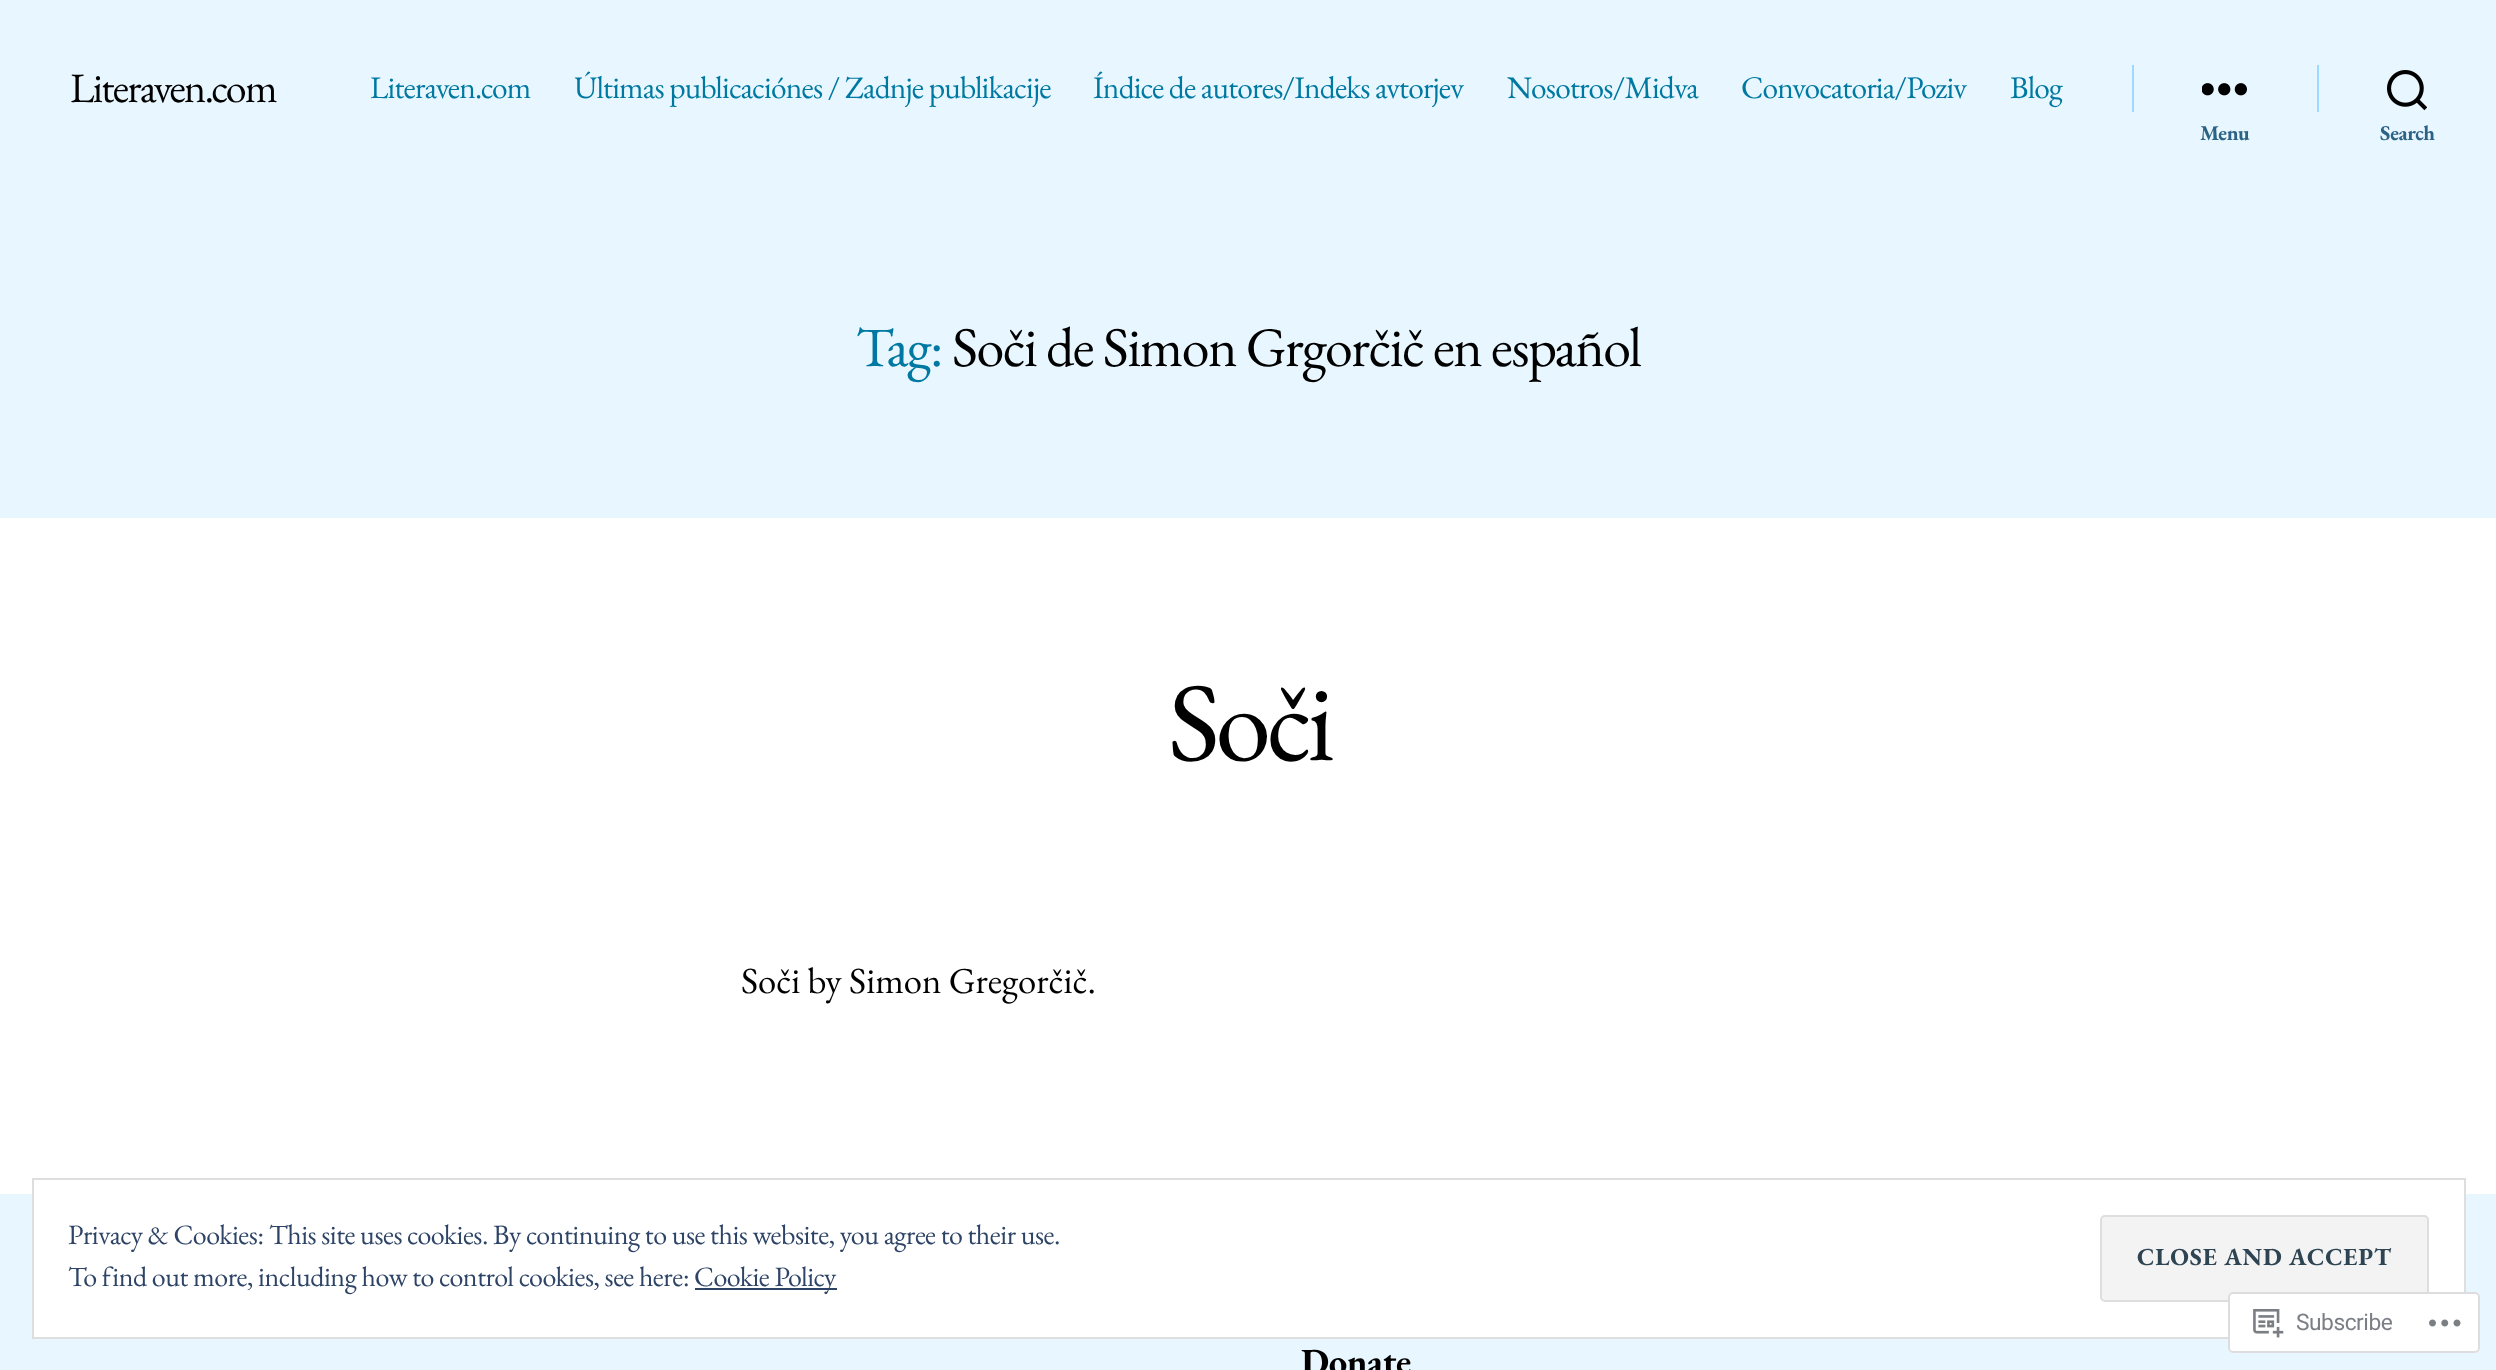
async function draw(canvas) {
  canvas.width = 2496;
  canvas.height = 1370;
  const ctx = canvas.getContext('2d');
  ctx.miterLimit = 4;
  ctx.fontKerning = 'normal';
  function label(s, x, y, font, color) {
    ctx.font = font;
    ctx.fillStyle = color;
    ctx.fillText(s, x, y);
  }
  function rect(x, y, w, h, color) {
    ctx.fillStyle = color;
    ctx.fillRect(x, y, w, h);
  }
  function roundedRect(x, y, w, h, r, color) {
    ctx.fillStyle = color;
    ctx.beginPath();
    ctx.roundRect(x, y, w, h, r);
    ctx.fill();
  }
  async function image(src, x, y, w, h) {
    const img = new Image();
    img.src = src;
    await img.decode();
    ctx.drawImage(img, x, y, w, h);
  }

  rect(0, 0, 2496, 1370, '#fff');
  rect(0, 0, 2496, 518, '#e8f7ff');
  ctx.letterSpacing = '-1.75px';
  label('Literaven.com', 70, 102, '42px EB Garamond', '#000');
  ctx.letterSpacing = '-0.85px';
  label('Literaven.com', 370, 98, '31.5px EB Garamond', '#0079a2');
  label('Últimas publicaciónes / Zadnje publikacije', 574, 98, '31.5px EB Garamond', '#0079a2');
  label('Índice de autores/Indeks avtorjev', 1093, 98, '31.5px EB Garamond', '#0079a2');
  label('Nosotros/Midva', 1507, 98, '31.5px EB Garamond', '#0079a2');
  label('Convocatoria/Poziv', 1741, 98, '31.5px EB Garamond', '#0079a2');
  label('Blog', 2010, 98, '31.5px EB Garamond', '#0079a2');
  rect(2132, 65, 2, 47, '#9ed9ff');
  await image('assets/img1.png', 2202, 83, 45, 13);
  ctx.letterSpacing = '-0.47px';
  label('Menu', 2200, 140, 'bold 21px EB Garamond', '#2c6285');
  rect(2317, 65, 2, 47, '#9ed9ff');
  await image('assets/img2.png', 2387, 70, 40, 41);
  label('Search', 2380, 140, 'bold 21px EB Garamond', '#2c6285');
  ctx.letterSpacing = '-1.5px';
  label('Tag:', 856, 366, '56px EB Garamond', '#0079a2');
  label('Soči de Simon Grgorčič en español', 952, 366, '56px EB Garamond', '#000');
  ctx.letterSpacing = '-4.5px';
  label('Soči', 1168, 760, '112px EB Garamond', '#000');
  ctx.letterSpacing = '0px';
  label('Soči by Simon Gregorčič.', 741, 993, '36.75px EB Garamond', '#000');
  rect(0, 1194, 2496, 176, '#e8f7ff');
  rect(34, 1194, 2430, 143, '#fff');
  ctx.strokeStyle = '#dedede';
  ctx.lineWidth = 2;
  ctx.strokeRect(33, 1179, 2432, 159);
  ctx.letterSpacing = '-0.47px';
  label('Privacy & Cookies: This site uses cookies. By continuing to use this website, you agree to their use.', 68, 1244, '28px EB Garamond', '#2e4467');
  ctx.fillStyle = '#f3f3f3';
  ctx.beginPath();
  ctx.roundRect(2101, 1216, 327, 85, 4);
  ctx.fill();
  ctx.stroke();
  ctx.letterSpacing = '0.8px';
  label('CLOSE AND ACCEPT', 2137, 1265, 'bold 24.5px EB Garamond', '#2e4453');
  ctx.letterSpacing = '-0.47px';
  label('To find out more, including how to control cookies, see here:', 68, 1286, '28px EB Garamond', '#2e4467');
  rect(695, 1288, 142, 2, '#2e4467');
  label('Cookie Policy', 694, 1286, '28px EB Garamond', '#2e4467');
  roundedRect(2228, 1292, 252, 61, 5, '#fffffffa');
  ctx.beginPath();
  ctx.roundRect(2229, 1293, 250, 59, 4);
  ctx.strokeStyle = '#dcdcdefa';
  ctx.stroke();
  await image('assets/img3.png', 2253, 1309, 31, 29);
  label('Subscribe', 2296, 1330, '22.75px Roboto', '#7b7f85');
  await image('assets/img4.png', 2429, 1319, 32, 8);
  label('Donate', 1301, 1374, 'bold 36.75px EB Garamond', '#000');
}

draw(document.querySelector('canvas'));
